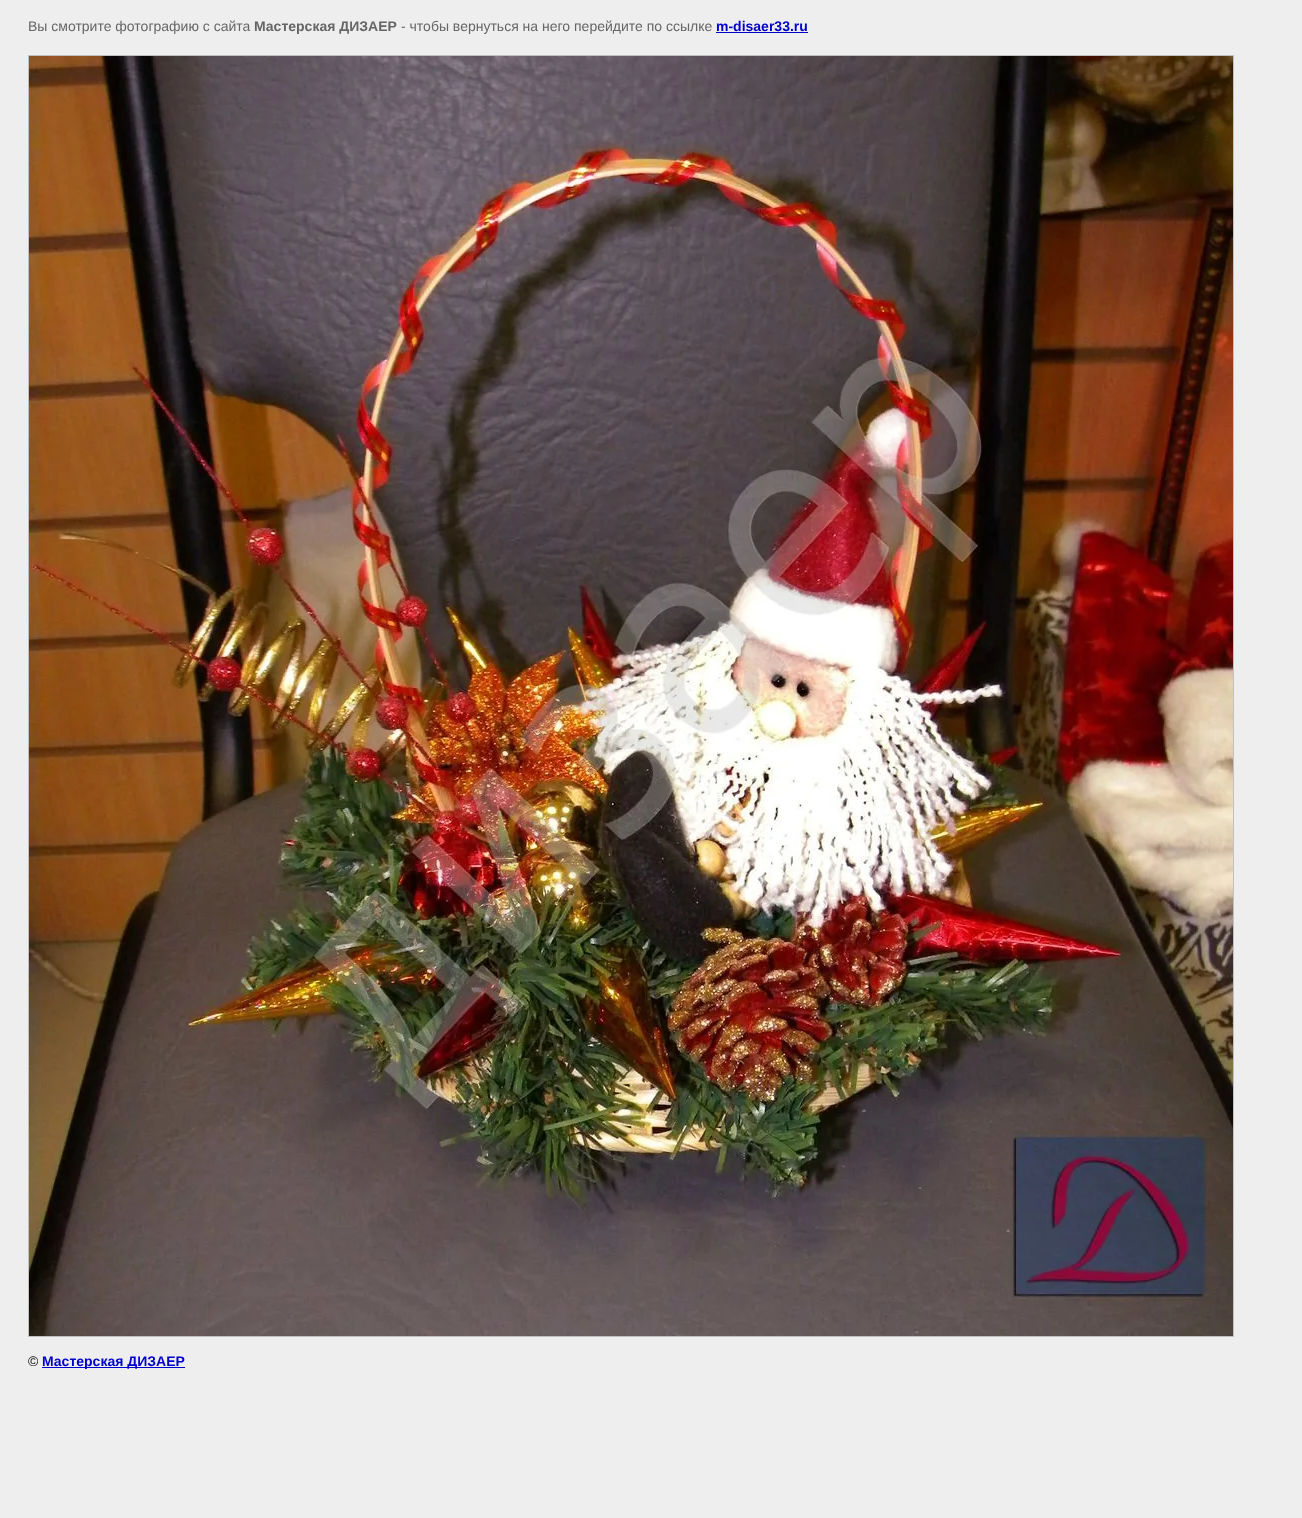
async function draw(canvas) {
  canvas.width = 1302;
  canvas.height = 1518;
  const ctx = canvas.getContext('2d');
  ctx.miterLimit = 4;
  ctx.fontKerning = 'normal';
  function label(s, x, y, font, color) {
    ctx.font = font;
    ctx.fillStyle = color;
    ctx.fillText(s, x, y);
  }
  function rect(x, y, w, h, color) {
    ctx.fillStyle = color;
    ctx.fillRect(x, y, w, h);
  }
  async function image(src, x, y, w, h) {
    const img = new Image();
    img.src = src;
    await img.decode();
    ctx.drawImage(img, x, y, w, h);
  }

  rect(0, 0, 1302, 1518, '#eee');
  label('Вы смотрите фотографию с сайта', 28, 31, '14px Liberation Sans', '#666');
  label('Мастерская ДИЗАЕР', 254, 31, 'bold 14px Liberation Sans', '#666');
  label('- чтобы вернуться на него перейдите по ссылке', 401, 31, '14px Liberation Sans', '#666');
  label('m-disaer33.ru', 716, 31, 'bold 14px Liberation Sans', '#00c');
  rect(716, 32, 92, 1, '#00c');
  ctx.strokeStyle = '#c0c0c0';
  ctx.strokeRect(28.5, 55.5, 1205, 1281);
  await image('assets/img1.png', 29, 56, 1204, 1280);
  label('©', 28, 1366, '14px Liberation Sans', '#000');
  rect(42, 1367, 143, 1, '#00c');
  label('Мастерская ДИЗАЕР', 42, 1366, 'bold 14px Liberation Sans', '#00c');
}

draw(document.querySelector('canvas'));
